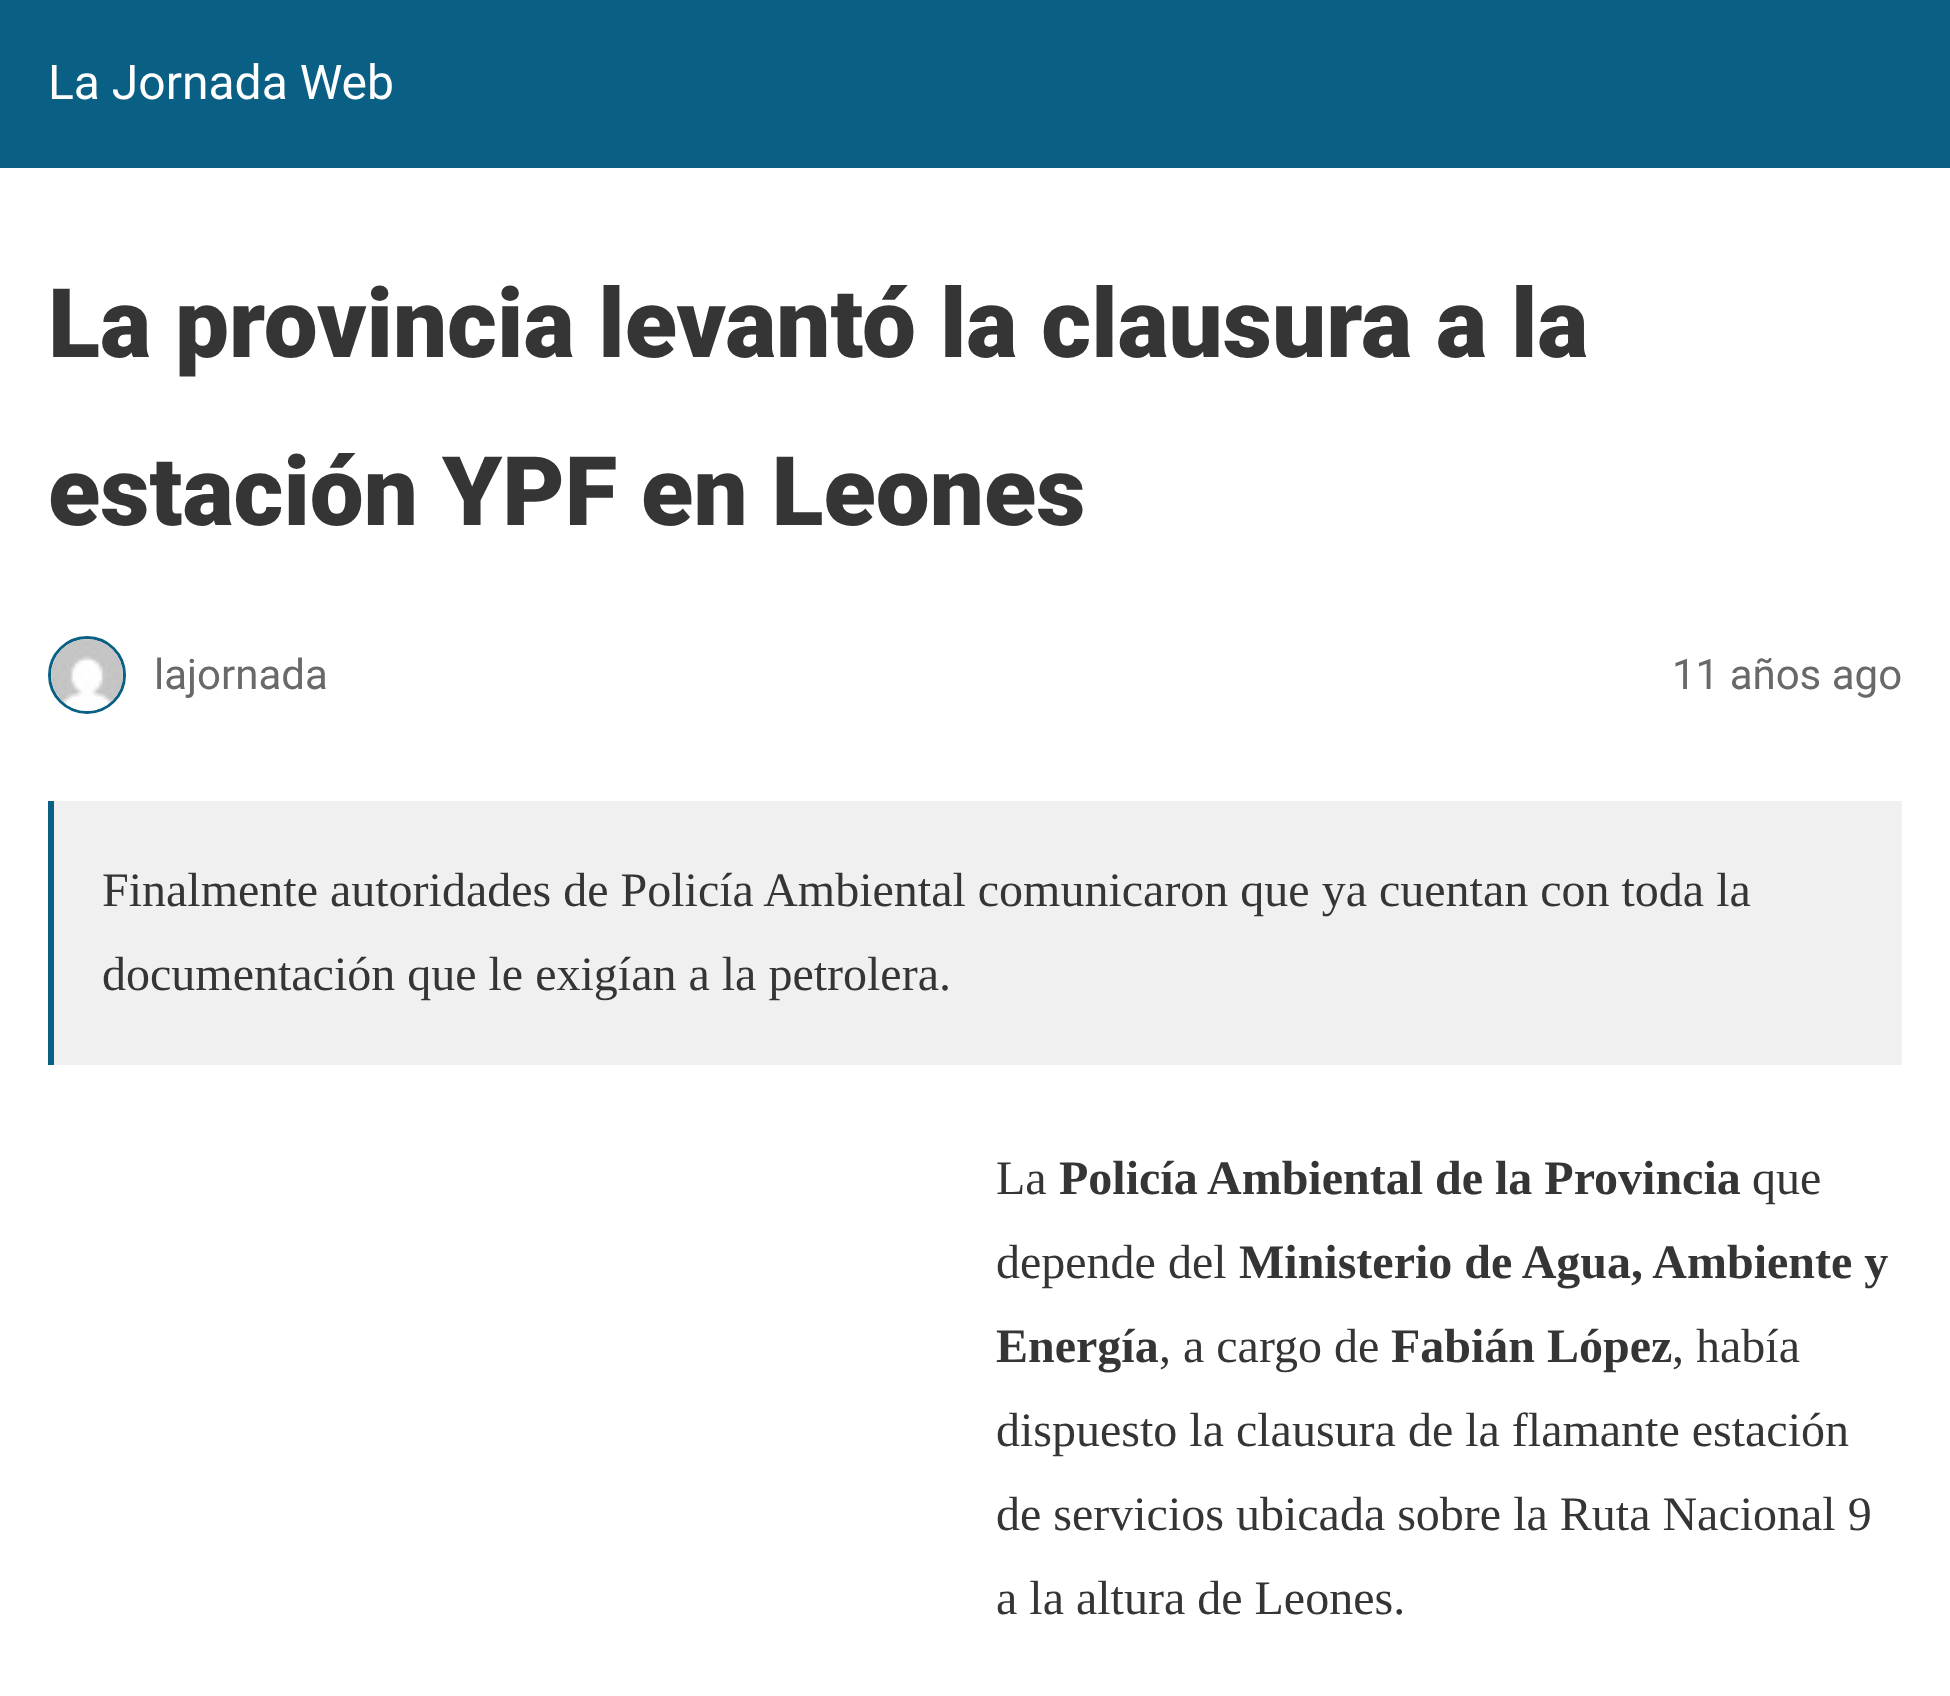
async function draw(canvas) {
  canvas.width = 1950;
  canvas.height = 1696;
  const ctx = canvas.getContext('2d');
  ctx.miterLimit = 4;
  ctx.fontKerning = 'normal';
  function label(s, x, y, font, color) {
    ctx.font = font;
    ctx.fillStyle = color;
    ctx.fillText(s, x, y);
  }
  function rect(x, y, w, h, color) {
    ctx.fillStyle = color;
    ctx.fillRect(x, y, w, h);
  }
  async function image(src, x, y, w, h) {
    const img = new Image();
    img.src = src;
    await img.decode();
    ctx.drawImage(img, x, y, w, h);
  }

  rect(0, 0, 1950, 1696, '#fff');
  rect(0, 0, 1950, 168, '#0a5f85');
  label('La Jornada Web', 48, 99, '48px Roboto', '#fff');
  label('La provincia levantó la clausura a la', 48, 357, '900 96px Roboto', '#353535');
  label('estación YPF en Leones', 48, 525, '900 96px Roboto', '#353535');
  ctx.beginPath();
  ctx.arc(87, 675, 37.5, 0, 2 * Math.PI);
  ctx.strokeStyle = '#0a5f85';
  ctx.lineWidth = 3;
  ctx.stroke();
  await image('assets/img1.png', 51, 639, 72, 72);
  label('lajornada', 154, 689, '42px Roboto', '#696969');
  label('11 años ago', 1672, 689, '42px Roboto', '#696969');
  rect(54, 801, 1848, 264, '#f0f0f0');
  rect(48, 801, 6, 264, '#0a5f85');
  label('Finalmente autoridades de Policía Ambiental comunicaron que ya cuentan con toda la', 102, 906, '48px Liberation Serif', '#353535');
  label('documentación que le exigían a la petrolera.', 102, 990, '48px Liberation Serif', '#353535');
  label('La', 996, 1194, '48px Liberation Serif', '#353535');
  label('Policía Ambiental de la Provincia', 1059, 1194, 'bold 48px Liberation Serif', '#353535');
  label('que', 1752, 1194, '48px Liberation Serif', '#353535');
  label('depende del', 996, 1278, '48px Liberation Serif', '#353535');
  label('Ministerio de Agua, Ambiente y', 1239, 1278, 'bold 48px Liberation Serif', '#353535');
  label('Energía', 996, 1362, 'bold 48px Liberation Serif', '#353535');
  label(', a cargo de', 1159, 1362, '48px Liberation Serif', '#353535');
  label('Fabián López', 1391, 1362, 'bold 48px Liberation Serif', '#353535');
  label(', había', 1672, 1362, '48px Liberation Serif', '#353535');
  label('dispuesto la clausura de la flamante estación', 996, 1446, '48px Liberation Serif', '#353535');
  label('de servicios ubicada sobre la Ruta Nacional 9', 996, 1530, '48px Liberation Serif', '#353535');
  label('a la altura de Leones.', 996, 1614, '48px Liberation Serif', '#353535');
}

draw(document.querySelector('canvas'));
